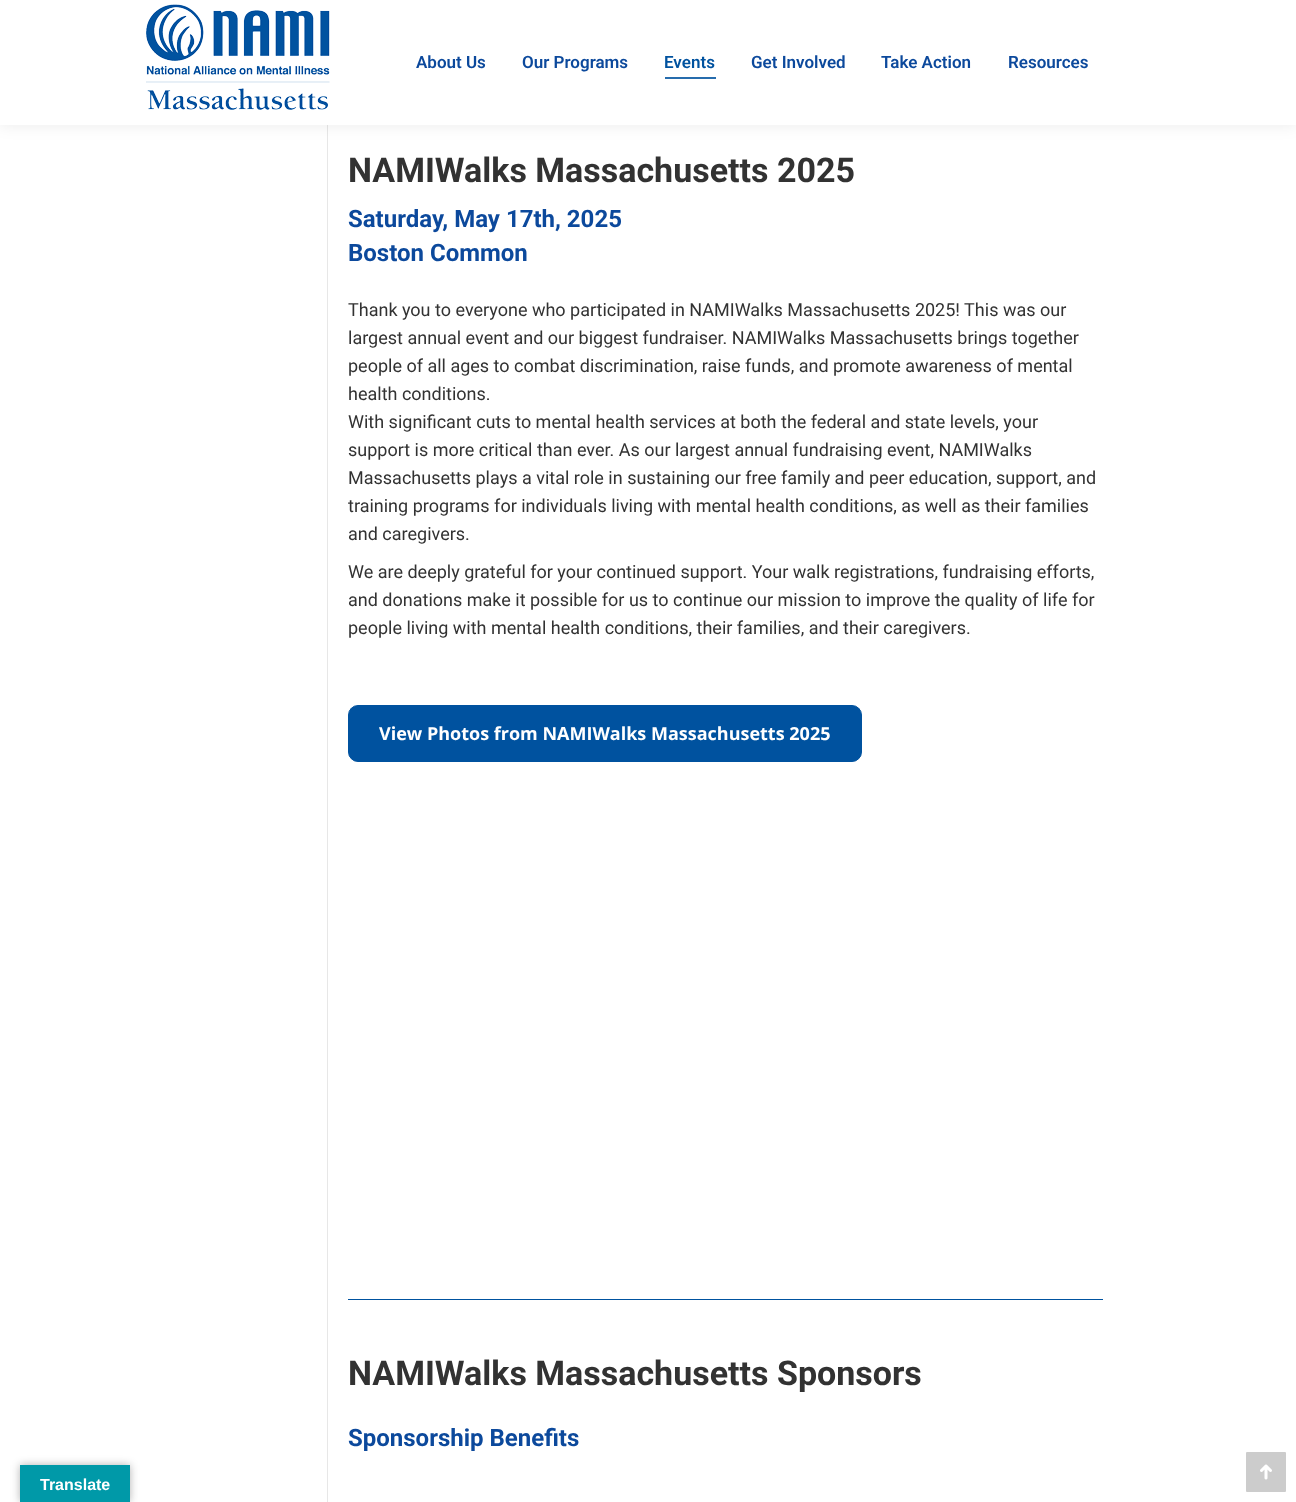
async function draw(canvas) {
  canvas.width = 1296;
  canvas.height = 1502;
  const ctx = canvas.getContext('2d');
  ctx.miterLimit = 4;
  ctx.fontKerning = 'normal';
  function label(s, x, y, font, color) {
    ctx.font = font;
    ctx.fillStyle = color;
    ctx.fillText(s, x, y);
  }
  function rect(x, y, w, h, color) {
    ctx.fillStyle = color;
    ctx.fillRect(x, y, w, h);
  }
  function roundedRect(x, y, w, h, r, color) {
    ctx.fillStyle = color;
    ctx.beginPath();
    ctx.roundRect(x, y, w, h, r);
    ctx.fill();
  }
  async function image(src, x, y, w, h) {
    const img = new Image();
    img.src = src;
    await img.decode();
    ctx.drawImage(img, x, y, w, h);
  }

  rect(0, 0, 1296, 1502, '#fff');
  rect(327, 125, 1, 1377, '#e7e7e7');
  ctx.fillStyle = '#00000012';
  ctx.filter = 'blur(7.5px)';
  ctx.beginPath();
  ctx.rect(-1, -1, 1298, 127);
  ctx.fill();
  ctx.filter = 'none';
  rect(0, 0, 1296, 125, '#fff');
  await image('assets/img1.png', 146, 4, 184, 106);
  label('About Us', 416, 68, '600 17px Roboto', '#0c499c');
  label('Our Programs', 522, 68, '600 17px Roboto', '#0c499c');
  label('Events', 664, 68, '600 17px Roboto', '#00529f');
  rect(665, 77, 51, 2, '#266cad');
  label('Get Involved', 751, 68, '600 17px Roboto', '#0c499c');
  label('Take Action', 881, 68, '600 17px Roboto', '#0c499c');
  label('Resources', 1008, 68, '600 17px Roboto', '#0c499c');
  label('NAMIWalks Massachusetts 2025', 348, 182, 'bold 34px Roboto', '#323232');
  label('Saturday, May 17th, 2025', 348, 227, 'bold 24px Roboto', '#0c499c');
  label('Boston Common', 348, 261, 'bold 24px Roboto', '#0c499c');
  label('Thank you to everyone who participated in NAMIWalks Massachusetts 2025! This was our', 348, 316, '18px Roboto', '#323232');
  label('largest annual event and our biggest fundraiser. NAMIWalks Massachusetts brings together', 348, 344, '18px Roboto', '#323232');
  label('people of all ages to combat discrimination, raise funds, and promote awareness of mental', 348, 372, '18px Roboto', '#323232');
  label('health conditions.', 348, 400, '18px Roboto', '#323232');
  label('With significant cuts to mental health services at both the federal and state levels, your', 348, 428, '18px Roboto', '#323232');
  label('support is more critical than ever. As our largest annual fundraising event, NAMIWalks', 348, 456, '18px Roboto', '#323232');
  label('Massachusetts plays a vital role in sustaining our free family and peer education, support, and', 348, 484, '18px Roboto', '#323232');
  label('training programs for individuals living with mental health conditions, as well as their families', 348, 512, '18px Roboto', '#323232');
  label('and caregivers.', 348, 540, '18px Roboto', '#323232');
  label('We are deeply grateful for your continued support. Your walk registrations, fundraising efforts,', 348, 578, '18px Roboto', '#323232');
  label('and donations make it possible for us to continue our mission to improve the quality of life for', 348, 606, '18px Roboto', '#323232');
  label('people living with mental health conditions, their families, and their caregivers.', 348, 634, '18px Roboto', '#323232');
  ctx.fillStyle = '#00529f';
  ctx.beginPath();
  ctx.roundRect(348.5, 705.5, 513, 56, 9.5);
  ctx.fill();
  ctx.strokeStyle = '#00529f';
  ctx.stroke();
  label('View Photos from NAMIWalks Massachusetts 2025', 379, 740, 'bold 18px Open Sans', '#fff');
  rect(348, 1299, 755, 1, '#00529f');
  label('NAMIWalks Massachusetts Sponsors', 348, 1385, 'bold 34px Roboto', '#323232');
  label('Sponsorship Benefits', 348, 1446, 'bold 24px Roboto', '#0c499c');
  roundedRect(1246, 1452, 40, 40, 1, '#ccc');
  await image('assets/img2.png', 1260, 1464, 12, 16);
  ctx.fillStyle = '#0000004d';
  ctx.filter = 'blur(4.5px)';
  ctx.beginPath();
  ctx.rect(20, 1465, 110, 37);
  ctx.fill();
  ctx.filter = 'none';
  rect(20, 1465, 110, 37, '#0099a8');
  label('Translate', 40, 1490, 'bold 16px Liberation Sans', '#fff');
}

draw(document.querySelector('canvas'));
